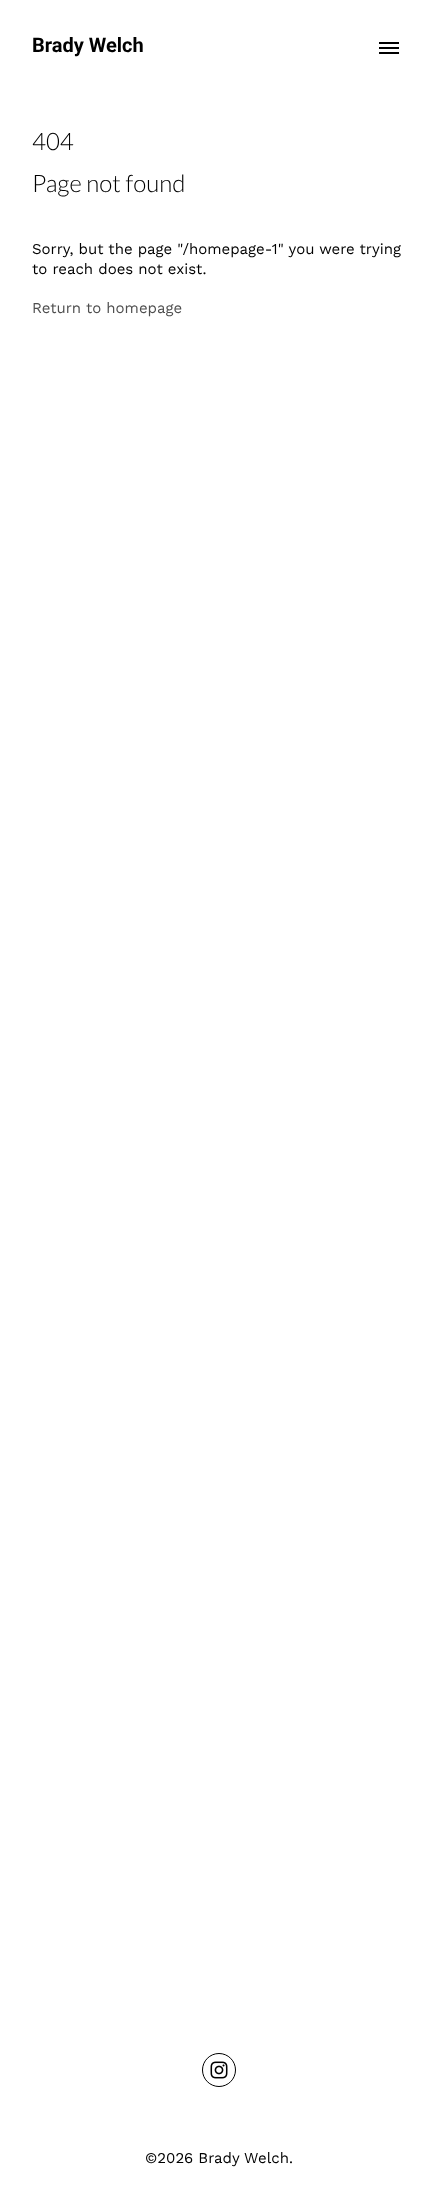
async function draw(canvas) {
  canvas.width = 437;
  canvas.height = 2188;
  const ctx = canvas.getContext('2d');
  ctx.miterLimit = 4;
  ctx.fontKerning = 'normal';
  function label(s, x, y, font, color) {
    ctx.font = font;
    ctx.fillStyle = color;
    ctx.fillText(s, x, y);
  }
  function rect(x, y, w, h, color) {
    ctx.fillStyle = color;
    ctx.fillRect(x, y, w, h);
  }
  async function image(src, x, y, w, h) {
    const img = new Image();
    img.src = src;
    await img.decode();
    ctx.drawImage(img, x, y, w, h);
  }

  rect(0, 0, 437, 2188, '#fff');
  label('Brady Welch', 32, 52, 'bold 20px Roboto', '#000');
  await image('assets/img1.png', 379, 42, 21, 12);
  label('404', 32, 150, '300 24px Lato', '#000');
  label('Page not found', 32, 192, '300 24px Lato', '#000');
  label('Sorry, but the page "/homepage-1" you were trying', 32, 254, '15px Work Sans', '#000');
  label('to reach does not exist.', 32, 274, '15px Work Sans', '#000');
  label('Return to homepage', 32, 313, '15px Work Sans', '#4e4e4e');
  ctx.beginPath();
  ctx.arc(219, 2070, 16.5, 0, 2 * Math.PI);
  ctx.strokeStyle = '#000';
  ctx.stroke();
  await image('assets/img2.png', 210, 2061, 18, 18);
  label('©2026 Brady Welch.', 145, 2163, '15px Work Sans', '#000');
}

draw(document.querySelector('canvas'));
